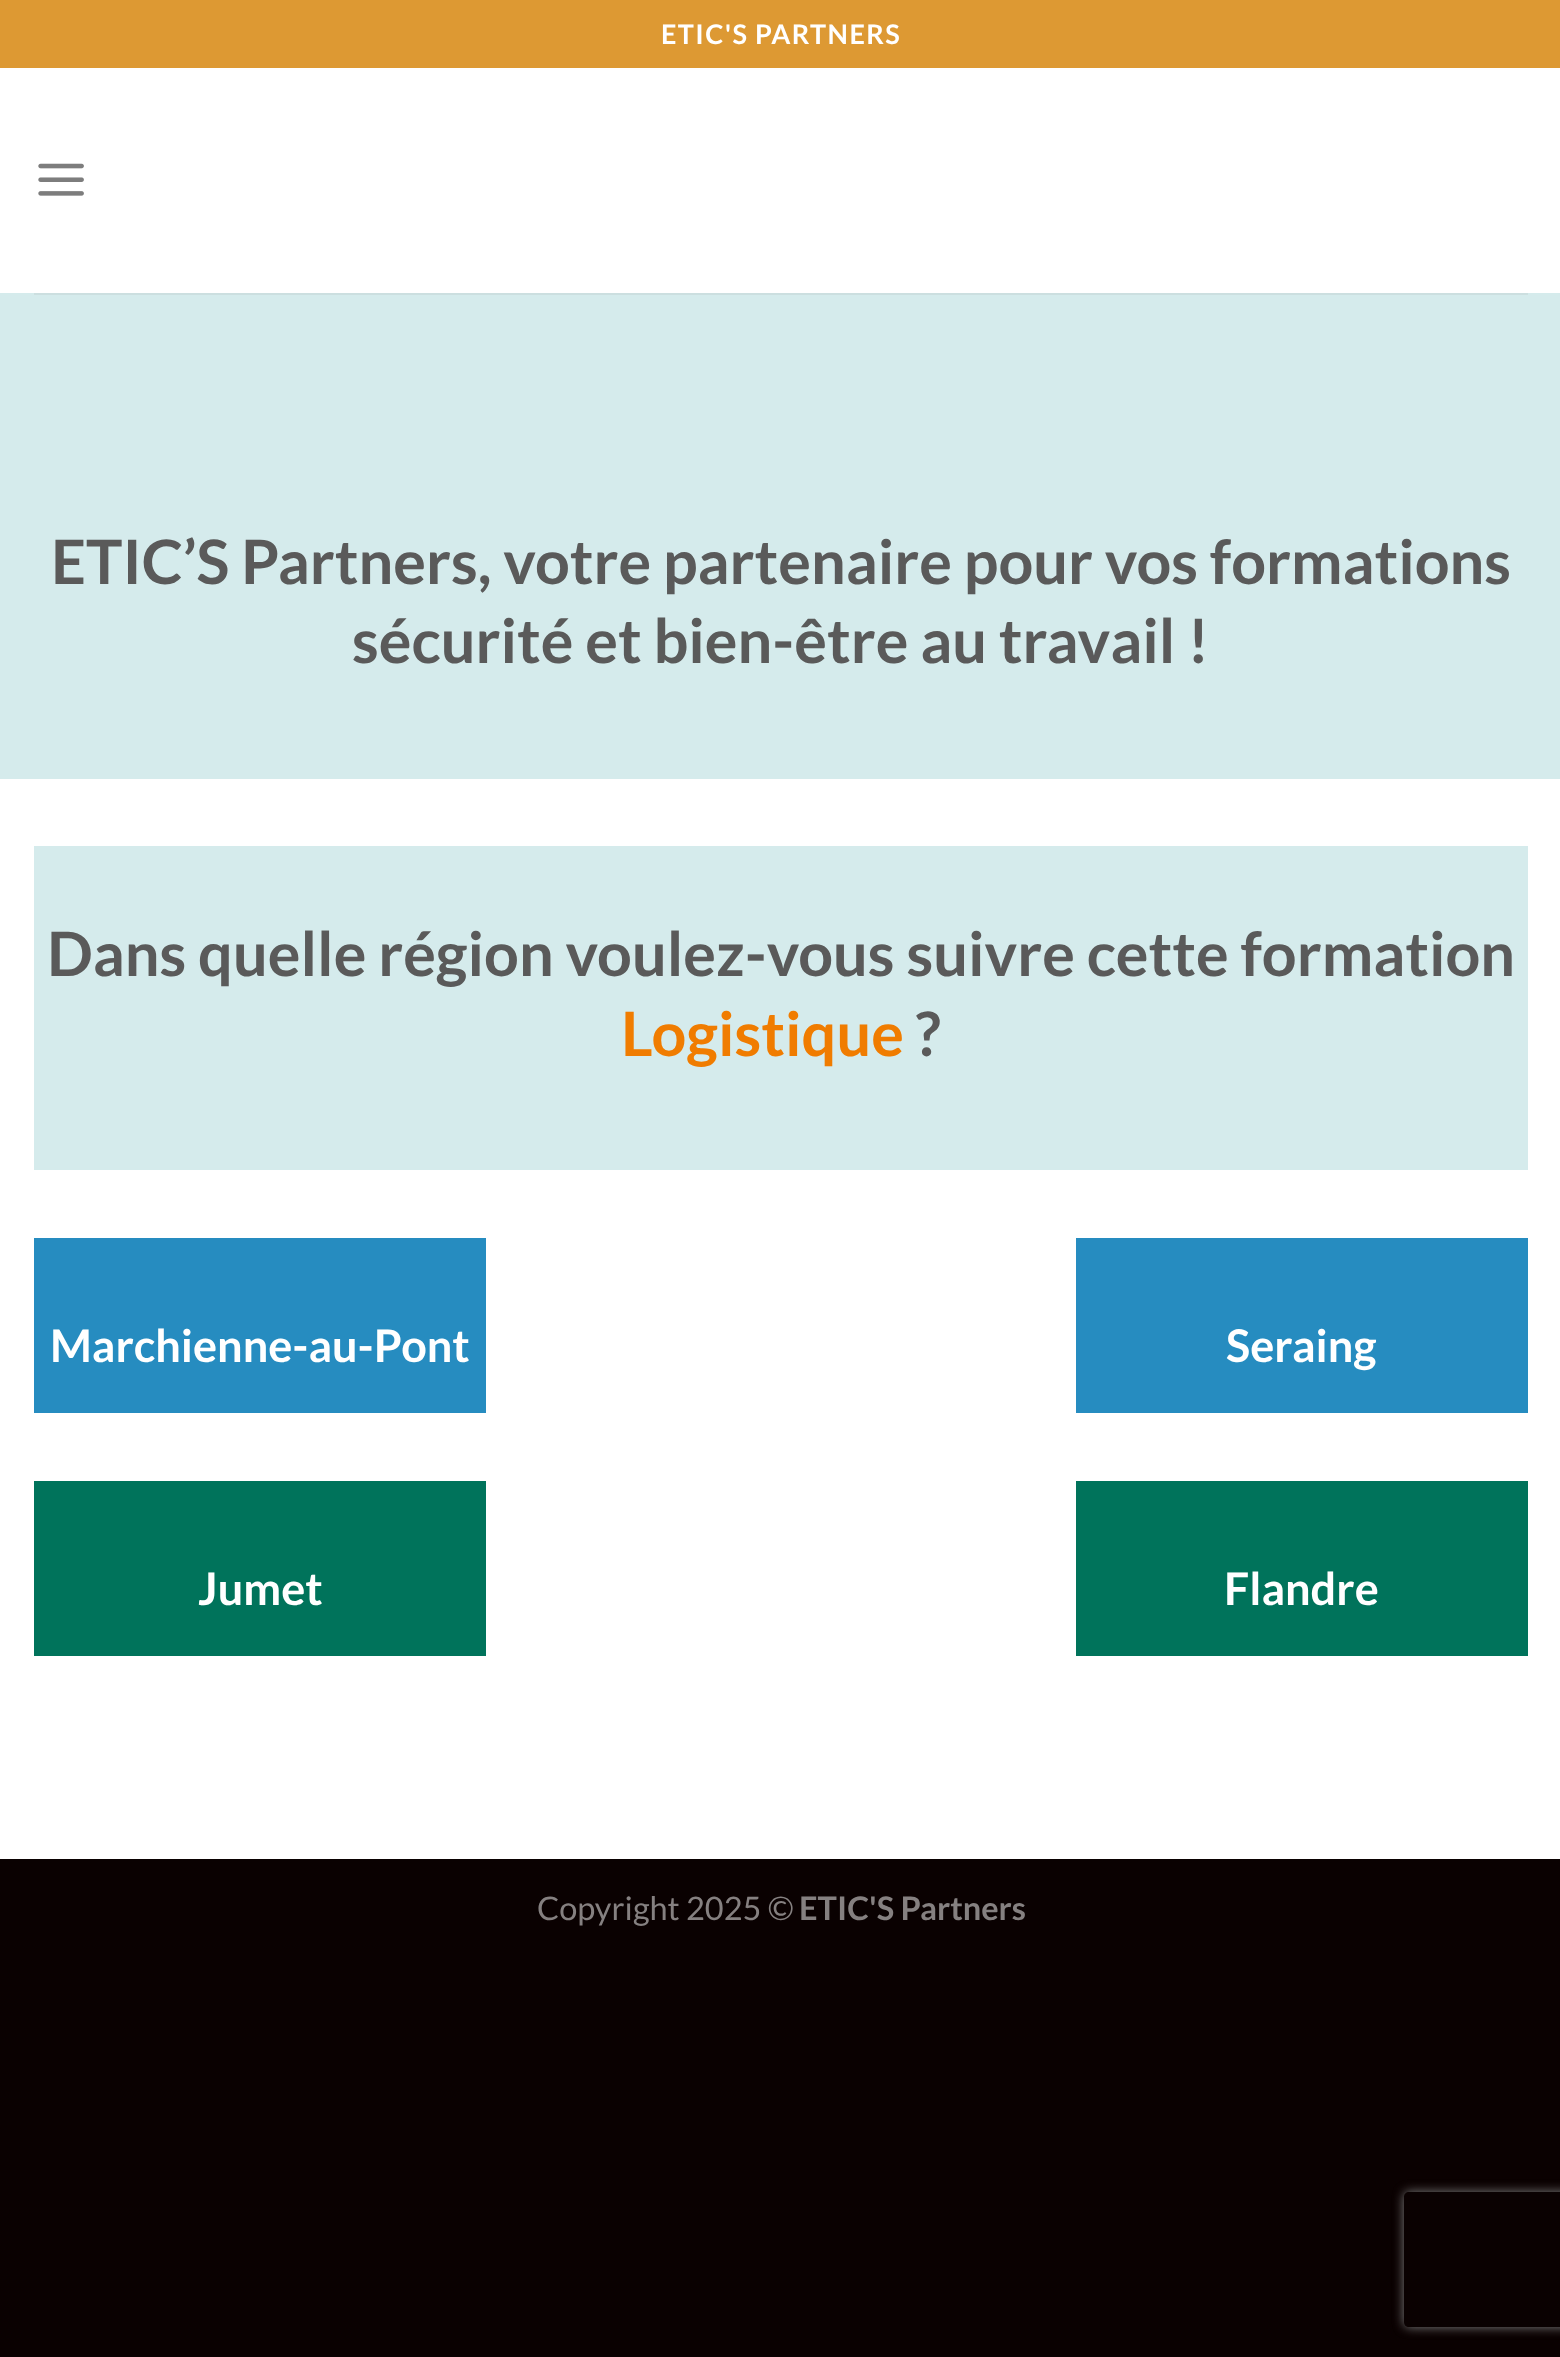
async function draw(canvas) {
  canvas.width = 1560;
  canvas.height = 2357;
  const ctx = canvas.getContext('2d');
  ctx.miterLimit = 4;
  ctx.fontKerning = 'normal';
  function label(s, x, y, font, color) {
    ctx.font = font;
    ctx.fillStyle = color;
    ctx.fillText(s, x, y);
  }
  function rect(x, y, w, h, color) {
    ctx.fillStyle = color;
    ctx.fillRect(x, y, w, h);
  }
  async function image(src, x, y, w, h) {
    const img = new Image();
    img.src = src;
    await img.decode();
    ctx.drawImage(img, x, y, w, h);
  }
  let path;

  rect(0, 0, 1560, 2357, '#0a0101');
  rect(0, 68, 1560, 1791, '#fff');
  rect(0, 0, 1560, 68, '#d93');
  ctx.letterSpacing = '1.4px';
  label('ETIC\'S PARTNERS', 661, 44, 'bold 27px Lato', '#fff');
  await image('assets/img1.png', 38, 163, 46, 33);
  rect(0, 293, 1560, 486, '#d5ebec');
  rect(34, 293, 1494, 2, '#ccdfe0');
  ctx.letterSpacing = '0px';
  label('ETIC’S Partners, votre partenaire pour vos formations', 51, 584, 'bold 61.2px Lato', '#5a5a5a');
  label('sécurité et bien-être au travail !', 352, 663, 'bold 61.2px Lato', '#5a5a5a');
  rect(34, 846, 1494, 324, '#d5ebec');
  label('Dans quelle région voulez-vous suivre cette formation', 47, 976, 'bold 61.2px Lato', '#5a5a5a');
  label('Logistique', 621, 1056, 'bold 61.2px Lato', '#f07c00');
  label('?', 915, 1056, 'bold 61.2px Lato', '#5a5a5a');
  rect(34, 1238, 452, 175, '#268cc0');
  label('Marchienne-au-Pont', 50, 1362, 'bold 45px Lato', '#fff');
  rect(1076, 1238, 452, 175, '#268cc0');
  label('Seraing', 1226, 1362, 'bold 45px Lato', '#fff');
  rect(34, 1481, 452, 175, '#00735b');
  label('Jumet', 198, 1605, 'bold 45px Lato', '#fff');
  rect(1076, 1481, 452, 175, '#00735b');
  label('Flandre', 1224, 1605, 'bold 45px Lato', '#fff');
  label('Copyright 2025 ©', 537, 1920, '32.5px Lato', '#858080');
  label('ETIC\'S Partners', 799, 1920, 'bold 32.5px Lato', '#858080');
  ctx.save();
  path = new Path2D('M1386 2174H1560V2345H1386ZM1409 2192H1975C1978 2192 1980 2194 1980 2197V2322C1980 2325 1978 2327 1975 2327H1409C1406 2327 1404 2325 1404 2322V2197C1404 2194 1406 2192 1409 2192Z');
  ctx.clip(path, 'evenodd');
  ctx.fillStyle = '#808080';
  ctx.filter = 'blur(5.5px)';
  ctx.beginPath();
  ctx.roundRect(1404, 2192, 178, 135, 5);
  ctx.fill();
  ctx.filter = 'none';
  ctx.restore();
}

draw(document.querySelector('canvas'));
